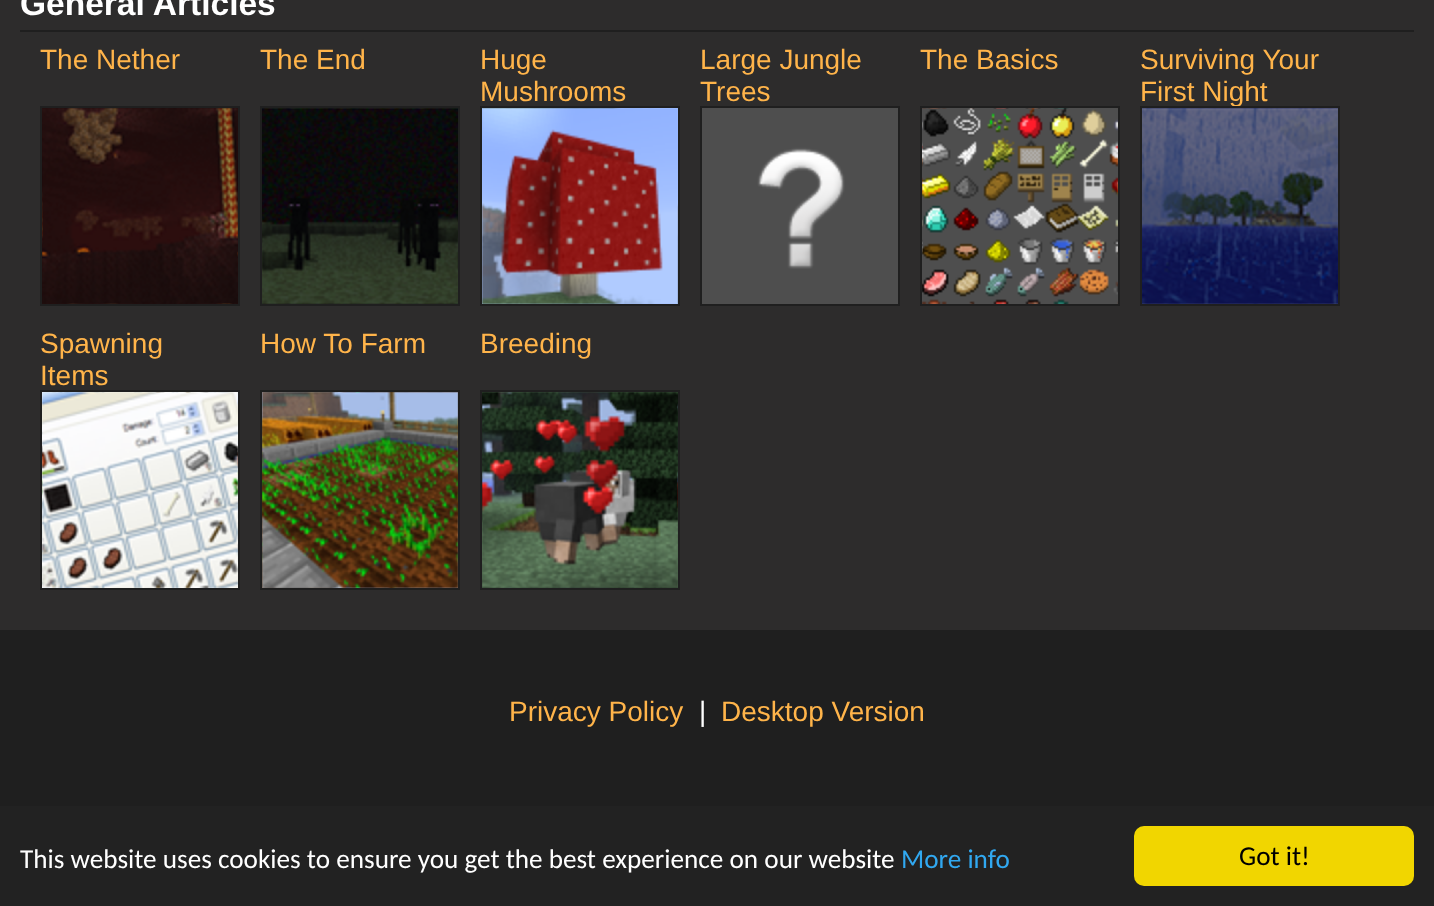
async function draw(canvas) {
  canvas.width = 1434;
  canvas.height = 906;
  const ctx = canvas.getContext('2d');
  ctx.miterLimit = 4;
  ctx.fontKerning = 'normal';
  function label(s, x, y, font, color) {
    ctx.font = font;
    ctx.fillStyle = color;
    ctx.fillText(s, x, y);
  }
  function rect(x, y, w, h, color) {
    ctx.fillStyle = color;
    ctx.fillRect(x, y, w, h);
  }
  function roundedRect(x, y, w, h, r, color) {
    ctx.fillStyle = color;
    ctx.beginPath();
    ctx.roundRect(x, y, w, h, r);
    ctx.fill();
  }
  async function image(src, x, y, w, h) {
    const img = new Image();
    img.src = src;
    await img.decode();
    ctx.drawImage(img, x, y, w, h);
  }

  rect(0, 0, 1434, 906, '#1f1f1f');
  rect(0, 0, 1434, 630, '#2d2c2c');
  rect(20, 30, 1394, 2, '#1f1f1f');
  label('General Articles', 20, 15, 'bold 33.5px Liberation Sans', '#fff');
  label('The Nether', 40, 69, '28px Liberation Sans', '#ffb44a');
  await image('assets/img1.png', 42, 108, 196, 196);
  ctx.strokeStyle = '#1f1f1f';
  ctx.lineWidth = 2;
  ctx.strokeRect(41, 107, 198, 198);
  label('The End', 260, 69, '28px Liberation Sans', '#ffb44a');
  await image('assets/img2.png', 262, 108, 196, 196);
  ctx.strokeRect(261, 107, 198, 198);
  label('Huge', 480, 69, '28px Liberation Sans', '#ffb44a');
  label('Mushrooms', 480, 101, '28px Liberation Sans', '#ffb44a');
  await image('assets/img3.png', 482, 108, 196, 196);
  ctx.strokeRect(481, 107, 198, 198);
  label('Large Jungle', 700, 69, '28px Liberation Sans', '#ffb44a');
  label('Trees', 700, 101, '28px Liberation Sans', '#ffb44a');
  await image('assets/img4.png', 702, 108, 196, 196);
  ctx.strokeRect(701, 107, 198, 198);
  label('The Basics', 920, 69, '28px Liberation Sans', '#ffb44a');
  await image('assets/img5.png', 922, 108, 196, 196);
  ctx.strokeRect(921, 107, 198, 198);
  label('Surviving Your', 1140, 69, '28px Liberation Sans', '#ffb44a');
  label('First Night', 1140, 101, '28px Liberation Sans', '#ffb44a');
  await image('assets/img6.png', 1142, 108, 196, 196);
  ctx.strokeRect(1141, 107, 198, 198);
  label('Spawning', 40, 353, '28px Liberation Sans', '#ffb44a');
  label('Items', 40, 385, '28px Liberation Sans', '#ffb44a');
  await image('assets/img7.png', 42, 392, 196, 196);
  ctx.strokeRect(41, 391, 198, 198);
  label('How To Farm', 260, 353, '28px Liberation Sans', '#ffb44a');
  await image('assets/img8.png', 262, 392, 196, 196);
  ctx.strokeRect(261, 391, 198, 198);
  label('Breeding', 480, 353, '28px Liberation Sans', '#ffb44a');
  await image('assets/img9.png', 482, 392, 196, 196);
  ctx.strokeRect(481, 391, 198, 198);
  label('Privacy Policy', 509, 721, '28px Liberation Sans', '#ffb44a');
  label('|', 699, 721, '28px Liberation Sans', '#fff');
  label('Desktop Version', 721, 721, '28px Liberation Sans', '#ffb44a');
  rect(0, 806, 1434, 100, '#222');
  label('This website uses cookies to ensure you get the best experience on our website', 20, 868, '27.2px Carlito', '#fff');
  label('More info', 901, 868, '27.2px Carlito', '#31a8f0');
  roundedRect(1134, 826, 280, 60, 10, '#f1d600');
  label('Got it!', 1239, 865, '27.2px Carlito', '#000');
}

draw(document.querySelector('canvas'));
